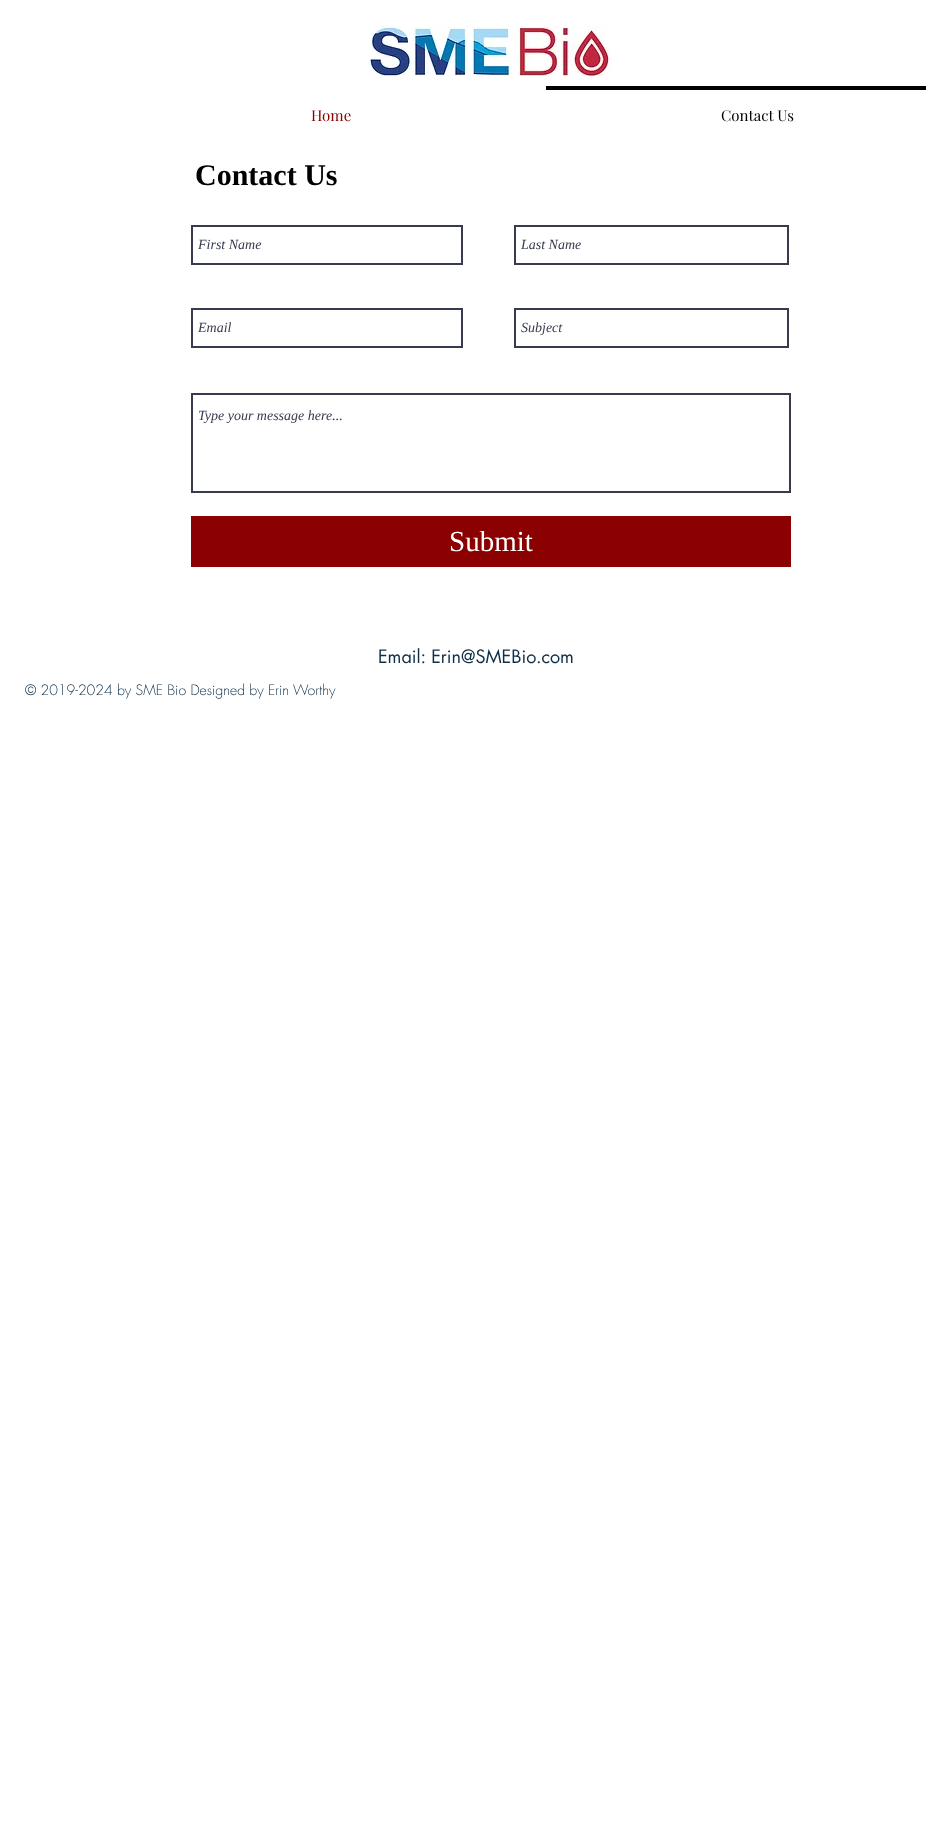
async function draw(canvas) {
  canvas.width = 926;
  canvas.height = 1835;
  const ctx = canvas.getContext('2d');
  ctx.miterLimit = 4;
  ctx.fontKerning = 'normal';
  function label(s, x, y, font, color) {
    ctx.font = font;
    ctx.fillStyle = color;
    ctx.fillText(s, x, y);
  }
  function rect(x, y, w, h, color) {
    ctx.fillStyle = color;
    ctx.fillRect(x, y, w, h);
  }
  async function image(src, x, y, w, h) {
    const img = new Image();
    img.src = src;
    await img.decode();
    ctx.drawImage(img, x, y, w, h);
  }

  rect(0, 0, 926, 1835, '#fff');
  await image('assets/img1.png', 368, 26, 244, 50);
  label('Home', 311, 121, '15px Playfair Display', '#8b0000');
  rect(546, 86, 380, 4, '#000');
  label('Contact Us', 721, 121, '15px Playfair Display', '#000');
  label('Contact Us', 195, 185, 'bold 30px Liberation Serif', '#000');
  ctx.strokeStyle = '#373b4d';
  ctx.lineWidth = 2;
  ctx.strokeRect(192, 226, 270, 38);
  label('First Name', 198, 249, 'italic 14px Liberation Serif', '#373b4d');
  ctx.strokeRect(515, 226, 273, 38);
  label('Last Name', 521, 249, 'italic 14px Liberation Serif', '#373b4d');
  ctx.strokeRect(192, 309, 270, 38);
  label('Email', 198, 332, 'italic 14px Liberation Serif', '#373b4d');
  ctx.strokeRect(515, 309, 273, 38);
  label('Subject', 521, 332, 'italic 14px Liberation Serif', '#373b4d');
  ctx.strokeRect(192, 394, 598, 98);
  label('Type your message here...', 198, 420, 'italic 14px Liberation Serif', '#373b4d');
  rect(191, 516, 600, 51, '#8b0000');
  label('Submit', 449, 551, '29px Liberation Serif', '#fff');
  label('Email: Erin@SMEBio.com', 378, 663, '18px futura', '#0e2e47');
  label('© 2019-2024 by SME Bio Designed by Erin Worthy', 25, 695, '300 14px futura', '#0e2e47');
}

draw(document.querySelector('canvas'));
